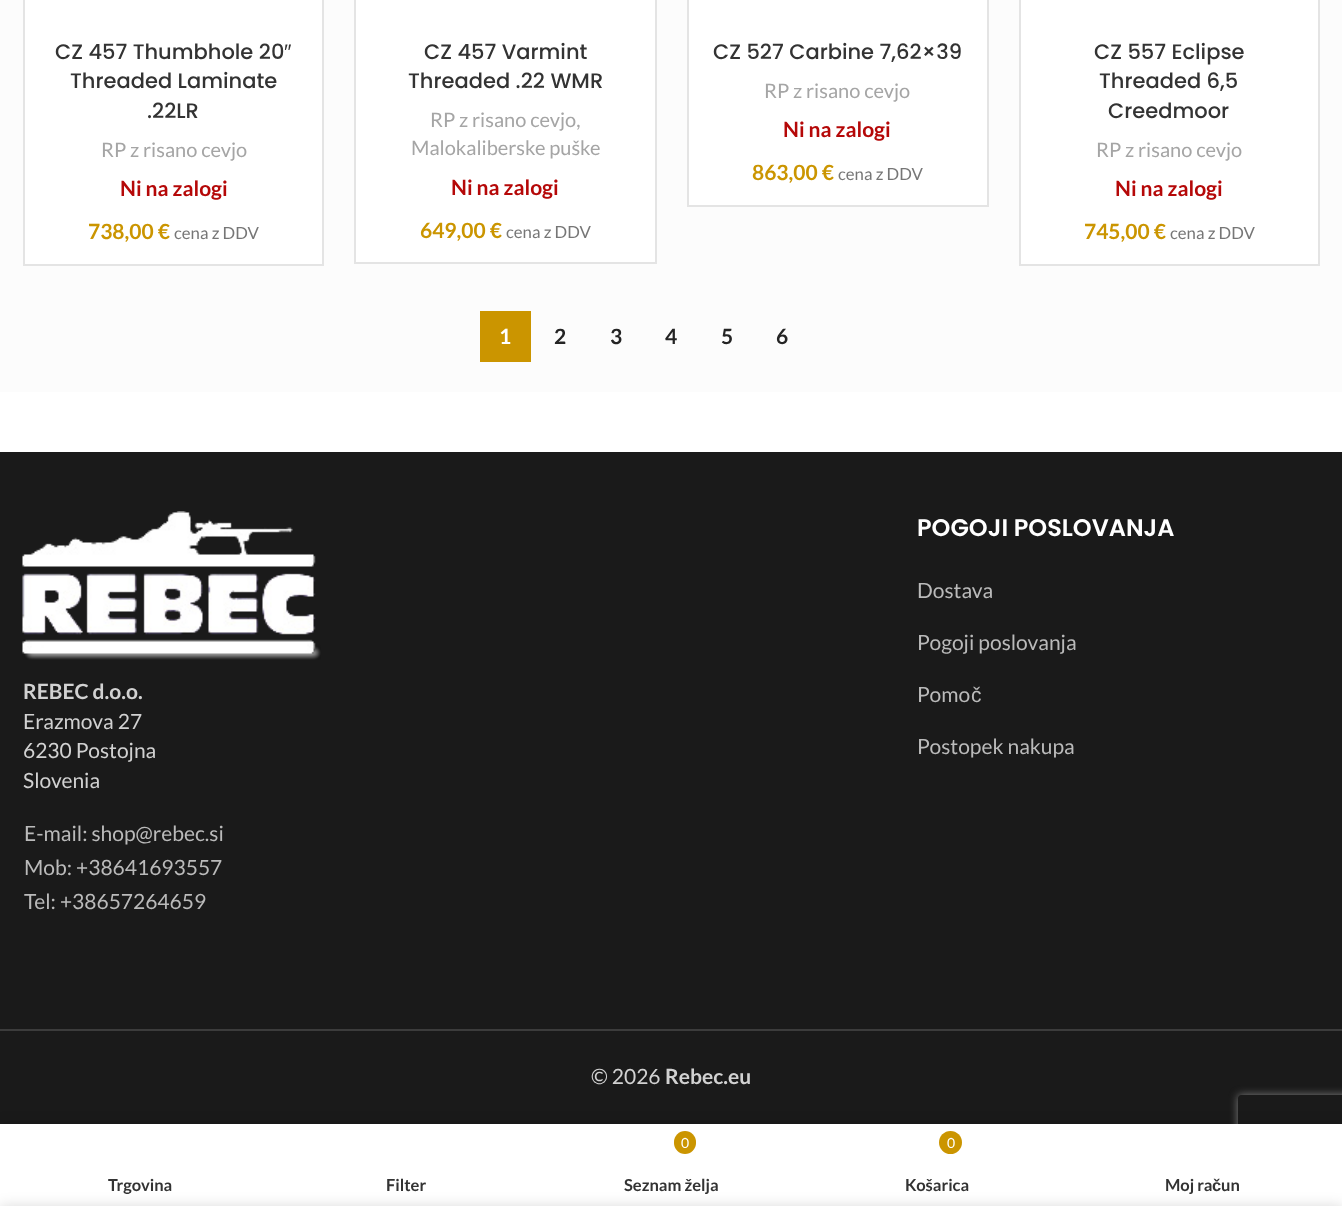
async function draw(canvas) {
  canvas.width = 1342;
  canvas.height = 1206;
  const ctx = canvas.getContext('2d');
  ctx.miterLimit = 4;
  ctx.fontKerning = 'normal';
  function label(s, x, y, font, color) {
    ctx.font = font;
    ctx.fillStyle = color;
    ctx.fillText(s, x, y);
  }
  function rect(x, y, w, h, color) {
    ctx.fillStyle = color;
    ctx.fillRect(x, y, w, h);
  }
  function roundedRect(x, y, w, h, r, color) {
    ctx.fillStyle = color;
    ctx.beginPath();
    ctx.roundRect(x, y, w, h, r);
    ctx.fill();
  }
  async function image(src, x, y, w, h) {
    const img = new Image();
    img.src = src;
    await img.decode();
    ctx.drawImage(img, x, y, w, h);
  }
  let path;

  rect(0, 0, 1342, 1206, '#fff');
  rect(0, 0, 1342, 392, '#fcfcfc');
  ctx.fillStyle = '#fff';
  ctx.beginPath();
  ctx.rect(24, -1, 299, 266);
  ctx.fill();
  ctx.strokeStyle = '#e4e4e4';
  ctx.lineWidth = 2;
  ctx.stroke();
  label('CZ 457 Thumbhole 20', 55, 59, '500 21px Poppins', '#333');
  label('″', 284, 59, '21px Liberation Sans', '#333');
  label('Threaded Laminate', 70, 88, '500 21px Poppins', '#333');
  label('.22LR', 147, 118, '500 21px Poppins', '#333');
  label('RP z risano cevjo', 101, 157, '20px Lato', '#a5a5a5');
  label('Ni na zalogi', 120, 196, 'bold 21px Lato', '#b50808');
  label('738,00 €', 88, 239, 'bold 21px Lato', '#cb9500');
  label('cena z DDV', 174, 239, '16.75px Lato', '#767676');
  ctx.fillStyle = '#fff';
  ctx.beginPath();
  ctx.rect(355, -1, 301, 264);
  ctx.fill();
  ctx.stroke();
  label('CZ 457 Varmint', 424, 59, '500 21px Poppins', '#333');
  label('Threaded .22 WMR', 408, 88, '500 21px Poppins', '#333');
  label('RP z risano cevjo,', 430, 127, '20px Lato', '#a5a5a5');
  label('Malokaliberske puške', 411, 155, '20px Lato', '#a5a5a5');
  label('Ni na zalogi', 451, 195, 'bold 21px Lato', '#b50808');
  label('649,00 €', 420, 238, 'bold 21px Lato', '#cb9500');
  label('cena z DDV', 506, 238, '16.75px Lato', '#767676');
  ctx.fillStyle = '#fff';
  ctx.beginPath();
  ctx.rect(688, -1, 300, 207);
  ctx.fill();
  ctx.stroke();
  label('CZ 527 Carbine 7,62×39', 713, 59, '500 21px Poppins', '#333');
  label('RP z risano cevjo', 764, 98, '20px Lato', '#a5a5a5');
  label('Ni na zalogi', 783, 137, 'bold 21px Lato', '#b50808');
  label('863,00 €', 752, 180, 'bold 21px Lato', '#cb9500');
  label('cena z DDV', 838, 180, '16.75px Lato', '#767676');
  ctx.fillStyle = '#fff';
  ctx.beginPath();
  ctx.rect(1020, -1, 299, 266);
  ctx.fill();
  ctx.stroke();
  label('CZ 557 Eclipse', 1094, 59, '500 21px Poppins', '#333');
  label('Threaded 6,5', 1099, 88, '500 21px Poppins', '#333');
  label('Creedmoor', 1108, 118, '500 21px Poppins', '#333');
  label('RP z risano cevjo', 1096, 157, '20px Lato', '#a5a5a5');
  label('Ni na zalogi', 1115, 196, 'bold 21px Lato', '#b50808');
  label('745,00 €', 1084, 239, 'bold 21px Lato', '#cb9500');
  label('cena z DDV', 1170, 239, '16.75px Lato', '#767676');
  rect(480, 311, 51, 51, '#cb9500');
  label('1', 499, 344, 'bold 21px Lato', '#fff');
  label('2', 554, 344, 'bold 21px Lato', '#242424');
  label('3', 610, 344, 'bold 21px Lato', '#242424');
  label('4', 665, 344, 'bold 21px Lato', '#242424');
  label('5', 721, 344, 'bold 21px Lato', '#242424');
  label('6', 776, 344, 'bold 21px Lato', '#242424');
  rect(0, 452, 1342, 672, '#1a1a1a');
  label('POGOJI POSLOVANJA', 917, 536, '600 24px Poppins', '#fff');
  label('Dostava', 917, 598, '21px Lato', '#bababa');
  label('Pogoji poslovanja', 917, 650, '21px Lato', '#bababa');
  label('Pomo', 917, 702, '21px Lato', '#bababa');
  label('č', 971, 702, '21px Liberation Sans', '#bababa');
  label('Postopek nakupa', 917, 754, '21px Lato', '#bababa');
  await image('assets/img1.png', 22, 511, 299, 149);
  label('REBEC d.o.o.', 23, 699, 'bold 21px Lato', '#d1d1d1');
  label('Erazmova 27', 23, 729, '21px Lato', '#d1d1d1');
  label('6230 Postojna', 23, 758, '21px Lato', '#d1d1d1');
  label('Slovenia', 23, 788, '21px Lato', '#d1d1d1');
  label('E-mail: shop@rebec.si', 24, 841, '21px Lato', '#bababa');
  label('Mob: +38641693557', 24, 875, '21px Lato', '#bababa');
  label('Tel: +38657264659', 24, 909, '21px Lato', '#bababa');
  rect(0, 1029, 1342, 2, '#3c3c3c');
  label('© 2026', 591, 1084, '21px Lato', '#d1d1d1');
  label('Rebec.eu', 665, 1084, 'bold 21px Lato', '#d1d1d1');
  ctx.fillStyle = '#0000001f';
  ctx.filter = 'blur(7px)';
  ctx.beginPath();
  ctx.rect(0, 1124, 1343, 82);
  ctx.fill();
  ctx.filter = 'none';
  ctx.save();
  path = new Path2D('M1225 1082H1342V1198H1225ZM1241 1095H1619C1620.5 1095 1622 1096.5 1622 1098V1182C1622 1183.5 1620.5 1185 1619 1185H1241C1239.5 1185 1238 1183.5 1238 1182V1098C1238 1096.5 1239.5 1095 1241 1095Z');
  ctx.clip(path, 'evenodd');
  ctx.fillStyle = '#808080';
  ctx.filter = 'blur(4px)';
  ctx.beginPath();
  ctx.roundRect(1238, 1095, 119, 90, 3);
  ctx.fill();
  ctx.filter = 'none';
  ctx.restore();
  rect(0, 1124, 1342, 82, '#fff');
  label('Trgovina', 108, 1191, 'bold 16.5px Lato', '#333');
  label('Filter', 386, 1191, 'bold 16.5px Lato', '#333');
  roundedRect(674, 1131, 22, 23, 11, '#cb9500');
  label('0', 681, 1148, '14px Lato', '#fff');
  label('Seznam želja', 624, 1191, 'bold 16.5px Lato', '#333');
  ctx.fillStyle = '#cb9500';
  ctx.beginPath();
  ctx.arc(950.5, 1142.5, 11.5, 0, 2 * Math.PI);
  ctx.fill();
  label('0', 947, 1148, '14px Lato', '#fff');
  label('Košarica', 905, 1191, 'bold 16.5px Lato', '#333');
  label('Moj ra', 1165, 1191, 'bold 16.5px Lato', '#333');
  label('č', 1212, 1191, 'bold 16.5px Liberation Sans', '#333');
  label('un', 1221, 1191, 'bold 16.5px Lato', '#333');
  ctx.fillStyle = '#00000024';
  ctx.filter = 'blur(7px)';
  ctx.beginPath();
  ctx.rect(0, 1206, 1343, 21);
  ctx.fill();
  ctx.filter = 'none';
}

draw(document.querySelector('canvas'));
